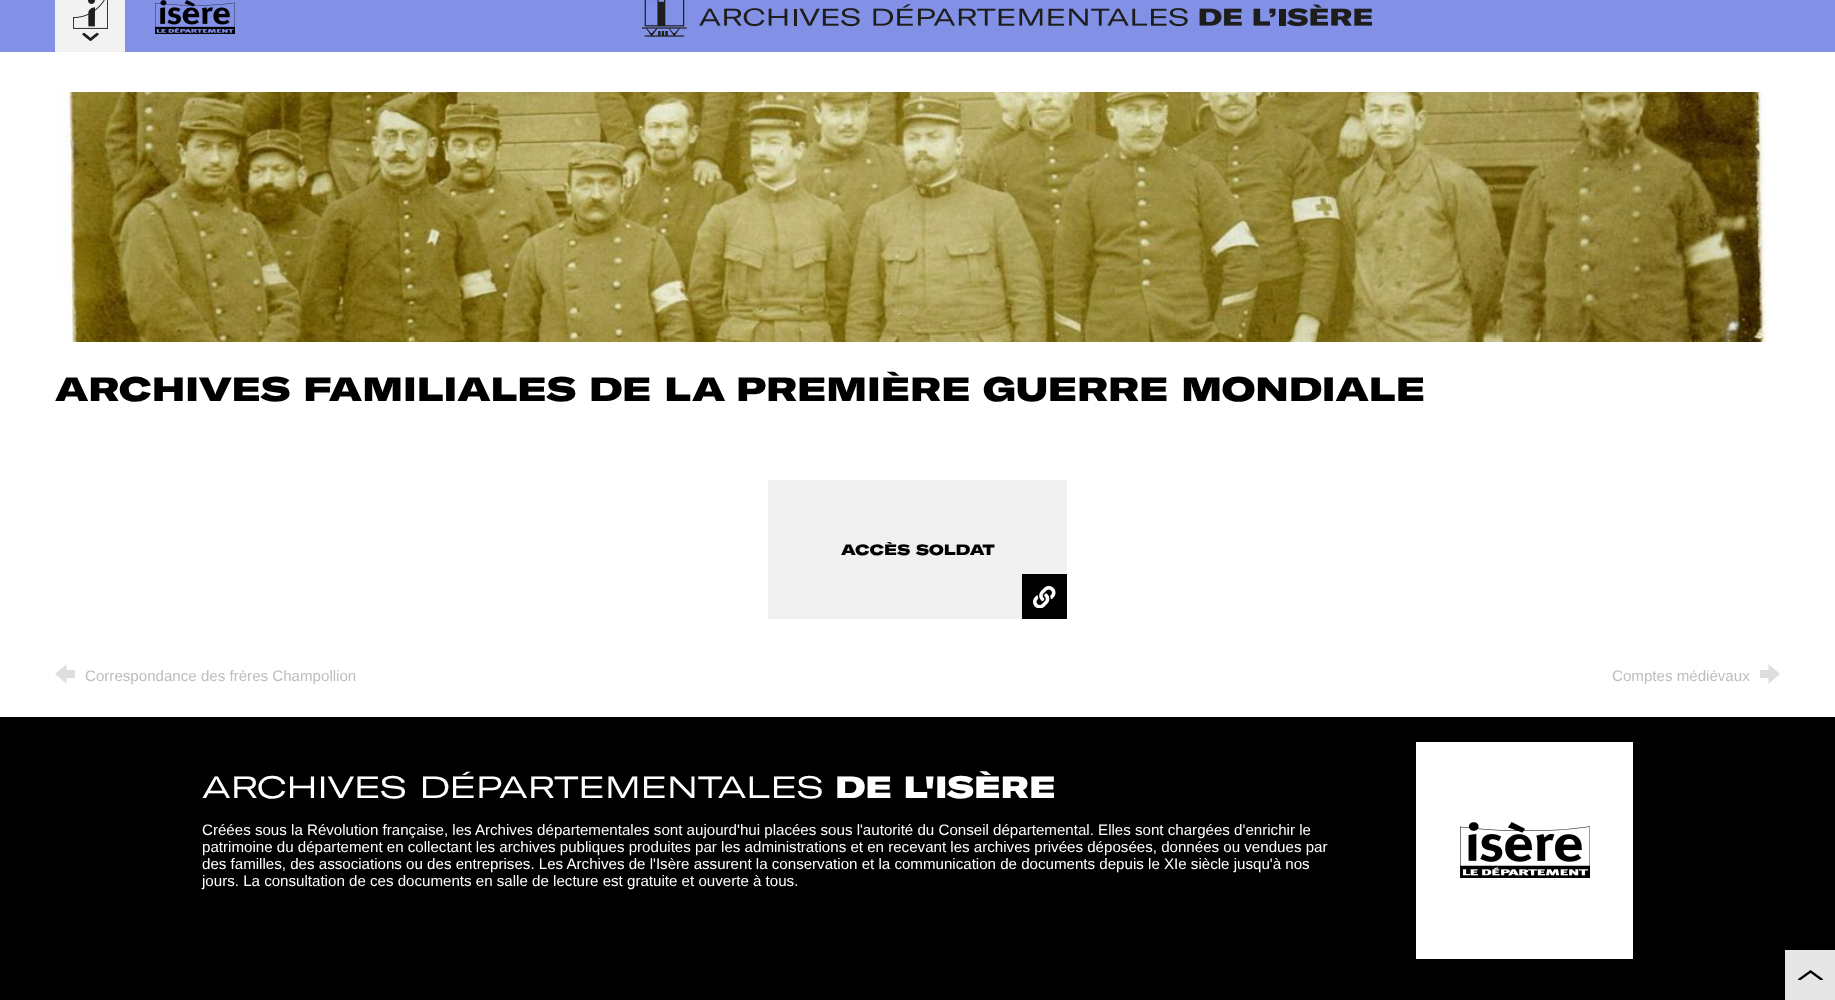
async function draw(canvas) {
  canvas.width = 1835;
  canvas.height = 1000;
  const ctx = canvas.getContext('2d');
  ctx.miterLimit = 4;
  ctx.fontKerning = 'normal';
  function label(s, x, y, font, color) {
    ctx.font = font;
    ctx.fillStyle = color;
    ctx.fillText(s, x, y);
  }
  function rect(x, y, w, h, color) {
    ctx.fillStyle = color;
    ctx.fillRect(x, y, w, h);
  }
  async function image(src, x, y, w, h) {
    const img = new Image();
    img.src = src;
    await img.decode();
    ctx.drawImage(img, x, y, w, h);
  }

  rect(0, 0, 1835, 1000, '#fff');
  rect(0, 0, 1835, 52, '#8291e6');
  rect(55, 0, 70, 52, '#f2f2f2');
  await image('assets/img1.png', 73, 0, 35, 41);
  await image('assets/img2.png', 155, 0, 80, 34);
  await image('assets/img3.png', 642, 0, 730, 37);
  await image('assets/img4.png', 55, 92, 1712, 250);
  label('ARCHIVES FAMILIALES DE LA PREMIÈRE GUERRE MONDIALE', 55, 401, '900 33.25px GT America', '#000');
  rect(768, 480, 299, 139, '#f0f0f0');
  label('ACCÈS SOLDAT', 841, 555, '900 14.75px GT America', '#000');
  rect(1022, 574, 45, 45, '#000');
  await image('assets/img5.png', 1033, 586, 23, 22);
  await image('assets/img6.png', 55, 664, 20, 20);
  label('Correspondance des frères Champollion', 85, 681, '15.12px Liberation Sans', '#bdbdbd');
  label('Comptes médiévaux', 1612, 681, '15.12px Liberation Sans', '#bdbdbd');
  await image('assets/img7.png', 1760, 664, 20, 20);
  rect(0, 717, 1835, 283, '#000');
  label('ARCHIVES DÉPARTEMENTALES', 202, 798, '30.25px GT America', '#fff');
  label('DE L\'ISÈRE', 835, 798, '900 30.25px GT America', '#fff');
  label('Créées sous la Révolution française, les Archives départementales sont aujourd\'hui placées sous l\'autorité du Conseil départemental. Elles sont chargées d\'enrichir le', 202, 835, '15.12px Liberation Sans', '#fff');
  label('patrimoine du département en collectant les archives publiques produites par les administrations et en recevant les archives privées déposées, données ou vendues par', 202, 852, '15.12px Liberation Sans', '#fff');
  label('des familles, des associations ou des entreprises. Les Archives de l\'Isère assurent la conservation et la communication de documents depuis le XIe siècle jusqu\'à nos', 202, 869, '15.12px Liberation Sans', '#fff');
  label('jours. La consultation de ces documents en salle de lecture est gratuite et ouverte à tous.', 202, 886, '15.12px Liberation Sans', '#fff');
  rect(1416, 742, 217, 217, '#fff');
  await image('assets/img8.png', 1460, 822, 130, 56);
  rect(1785, 950, 50, 50, '#e6e6e6');
  await image('assets/img9.png', 1798, 970, 25, 10);
}

draw(document.querySelector('canvas'));
